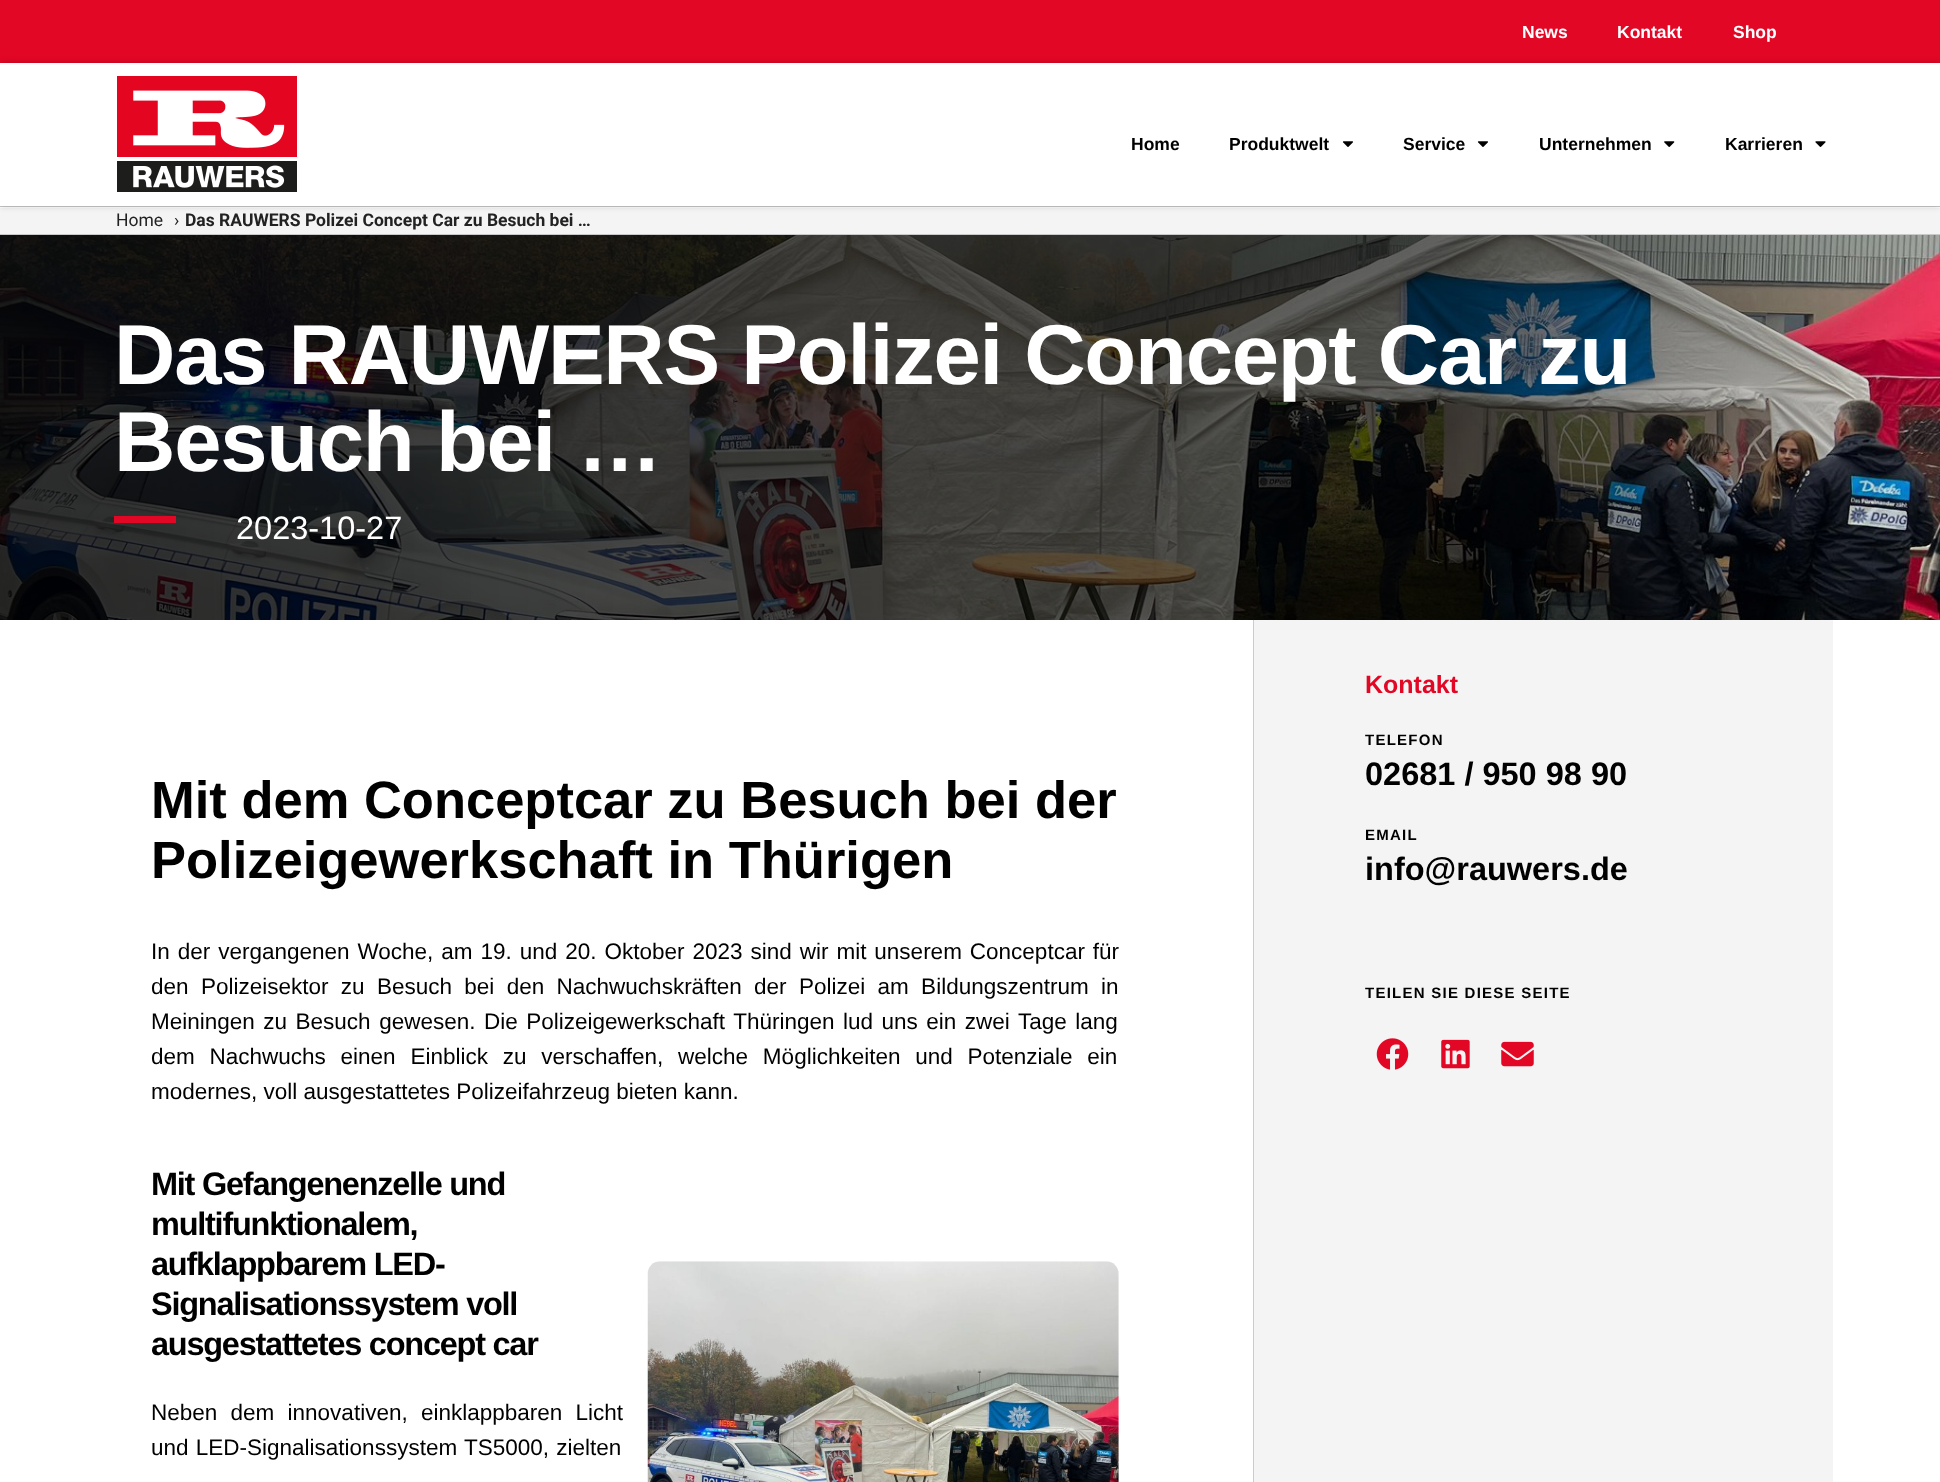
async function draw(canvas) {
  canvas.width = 1940;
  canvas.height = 1482;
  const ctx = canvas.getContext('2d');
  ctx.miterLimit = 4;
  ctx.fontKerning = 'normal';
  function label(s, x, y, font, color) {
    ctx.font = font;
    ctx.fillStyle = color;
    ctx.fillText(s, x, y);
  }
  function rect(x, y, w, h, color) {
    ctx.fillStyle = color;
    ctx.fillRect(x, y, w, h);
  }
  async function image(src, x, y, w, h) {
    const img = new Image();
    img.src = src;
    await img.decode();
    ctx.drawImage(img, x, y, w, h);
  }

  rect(0, 0, 1940, 1482, '#fff');
  rect(0, 0, 1940, 63, '#e20725');
  label('News', 1522, 38, 'bold 17.5px Liberation Sans', '#fff');
  label('Kontakt', 1617, 38, 'bold 17.5px Liberation Sans', '#fff');
  label('Shop', 1733, 38, 'bold 17.5px Liberation Sans', '#fff');
  rect(0, 208, 1940, 26, '#f4f4f4');
  rect(0, 206, 1940, 1, '#c9c9c9');
  ctx.fillStyle = '#00000033';
  ctx.filter = 'blur(3px)';
  ctx.beginPath();
  ctx.rect(0, 63, 1940, 143);
  ctx.fill();
  ctx.filter = 'none';
  rect(0, 63, 1940, 143, '#fff');
  await image('assets/img1.png', 117, 76, 180, 116);
  label('Home', 1131, 150, 'bold 17.5px Liberation Sans', '#000');
  label('Produktwelt', 1229, 150, 'bold 17.5px Liberation Sans', '#000');
  await image('assets/img2.png', 1342, 141, 11, 6);
  label('Service', 1403, 150, 'bold 17.5px Liberation Sans', '#000');
  await image('assets/img2.png', 1477, 141, 11, 6);
  label('Unternehmen', 1539, 150, 'bold 17.5px Liberation Sans', '#000');
  await image('assets/img3.png', 1664, 141, 11, 6);
  label('Karrieren', 1725, 150, 'bold 17.5px Liberation Sans', '#000');
  await image('assets/img4.png', 1815, 141, 11, 6);
  rect(0, 234, 1940, 1, '#c9c9c9');
  label('Home', 116, 226, '17.5px Roboto', '#222');
  label('›', 174, 226, '17.5px Roboto', '#222');
  label('Das RAUWERS Polizei Concept Car zu Besuch bei …', 185, 226, 'bold 17.5px Roboto', '#222');
  await image('assets/img5.png', 0, 235, 1940, 385);
  ctx.letterSpacing = '-1.25px';
  label('Das RAUWERS Polizei Concept Car zu', 114, 384, 'bold 85px Liberation Sans', '#fff');
  label('Besuch bei …', 114, 471, 'bold 85px Liberation Sans', '#fff');
  rect(114, 516, 62, 7, '#e20725');
  ctx.letterSpacing = '0px';
  label('2023-10-27', 236, 539, '32.5px Liberation Sans', '#fff');
  label('Mit dem Conceptcar zu Besuch bei der', 151, 818, 'bold 52.5px Liberation Sans', '#000');
  label('Polizeigewerkschaft in Thürigen', 151, 878, 'bold 52.5px Liberation Sans', '#000');
  ctx.wordSpacing = '1.7px';
  label('In der vergangenen Woche, am 19. und 20. Oktober 2023 sind wir mit unserem Conceptcar für', 151, 959, '22.5px Liberation Sans', '#000');
  ctx.wordSpacing = '6.1px';
  label('den Polizeisektor zu Besuch bei den Nachwuchskräften der Polizei am Bildungszentrum in', 151, 994, '22.5px Liberation Sans', '#000');
  ctx.wordSpacing = '2.25px';
  label('Meiningen zu Besuch gewesen. Die Polizeigewerkschaft Thüringen lud uns ein zwei Tage lang', 151, 1029, '22.5px Liberation Sans', '#000');
  ctx.wordSpacing = '8.5px';
  label('dem Nachwuchs einen Einblick zu verschaffen, welche Möglichkeiten und Potenziale ein', 151, 1064, '22.5px Liberation Sans', '#000');
  ctx.wordSpacing = '0px';
  label('modernes, voll ausgestattetes Polizeifahrzeug bieten kann.', 151, 1099, '22.5px Liberation Sans', '#000');
  ctx.letterSpacing = '-1.25px';
  label('Mit Gefangenenzelle und', 151, 1195, 'bold 32.5px Liberation Sans', '#000');
  label('multifunktionalem,', 151, 1235, 'bold 32.5px Liberation Sans', '#000');
  label('aufklappbarem LED-', 151, 1275, 'bold 32.5px Liberation Sans', '#000');
  label('Signalisationssystem voll', 151, 1315, 'bold 32.5px Liberation Sans', '#000');
  label('ausgestattetes concept car', 151, 1355, 'bold 32.5px Liberation Sans', '#000');
  ctx.letterSpacing = '0px';
  ctx.wordSpacing = '7px';
  label('Neben dem innovativen, einklappbaren Licht', 151, 1420, '22.5px Liberation Sans', '#000');
  ctx.wordSpacing = '1px';
  label('und LED-Signalisationssystem TS5000, zielten', 151, 1455, '22.5px Liberation Sans', '#000');
  await image('assets/img6.png', 647, 1261, 472, 221);
  rect(1254, 620, 579, 862, '#f4f4f4');
  rect(1253, 620, 1, 862, '#ccc');
  ctx.wordSpacing = '0px';
  label('Kontakt', 1365, 693, 'bold 25px Liberation Sans', '#e20725');
  ctx.letterSpacing = '1.25px';
  label('TELEFON', 1365, 745, 'bold 15px Liberation Sans', '#000');
  ctx.letterSpacing = '0px';
  label('02681 / 950 98 90', 1365, 785, 'bold 32.5px Liberation Sans', '#000');
  ctx.letterSpacing = '1.25px';
  label('EMAIL', 1365, 840, 'bold 15px Liberation Sans', '#000');
  ctx.letterSpacing = '0px';
  label('info@rauwers.de', 1365, 880, 'bold 32.5px Liberation Sans', '#000');
  ctx.letterSpacing = '1.25px';
  label('TEILEN SIE DIESE SEITE', 1365, 998, 'bold 15px Liberation Sans', '#000');
  await image('assets/img7.png', 1376, 1038, 33, 32);
  await image('assets/img8.png', 1441, 1039, 29, 30);
  await image('assets/img9.png', 1501, 1041, 33, 26);
}

draw(document.querySelector('canvas'));
